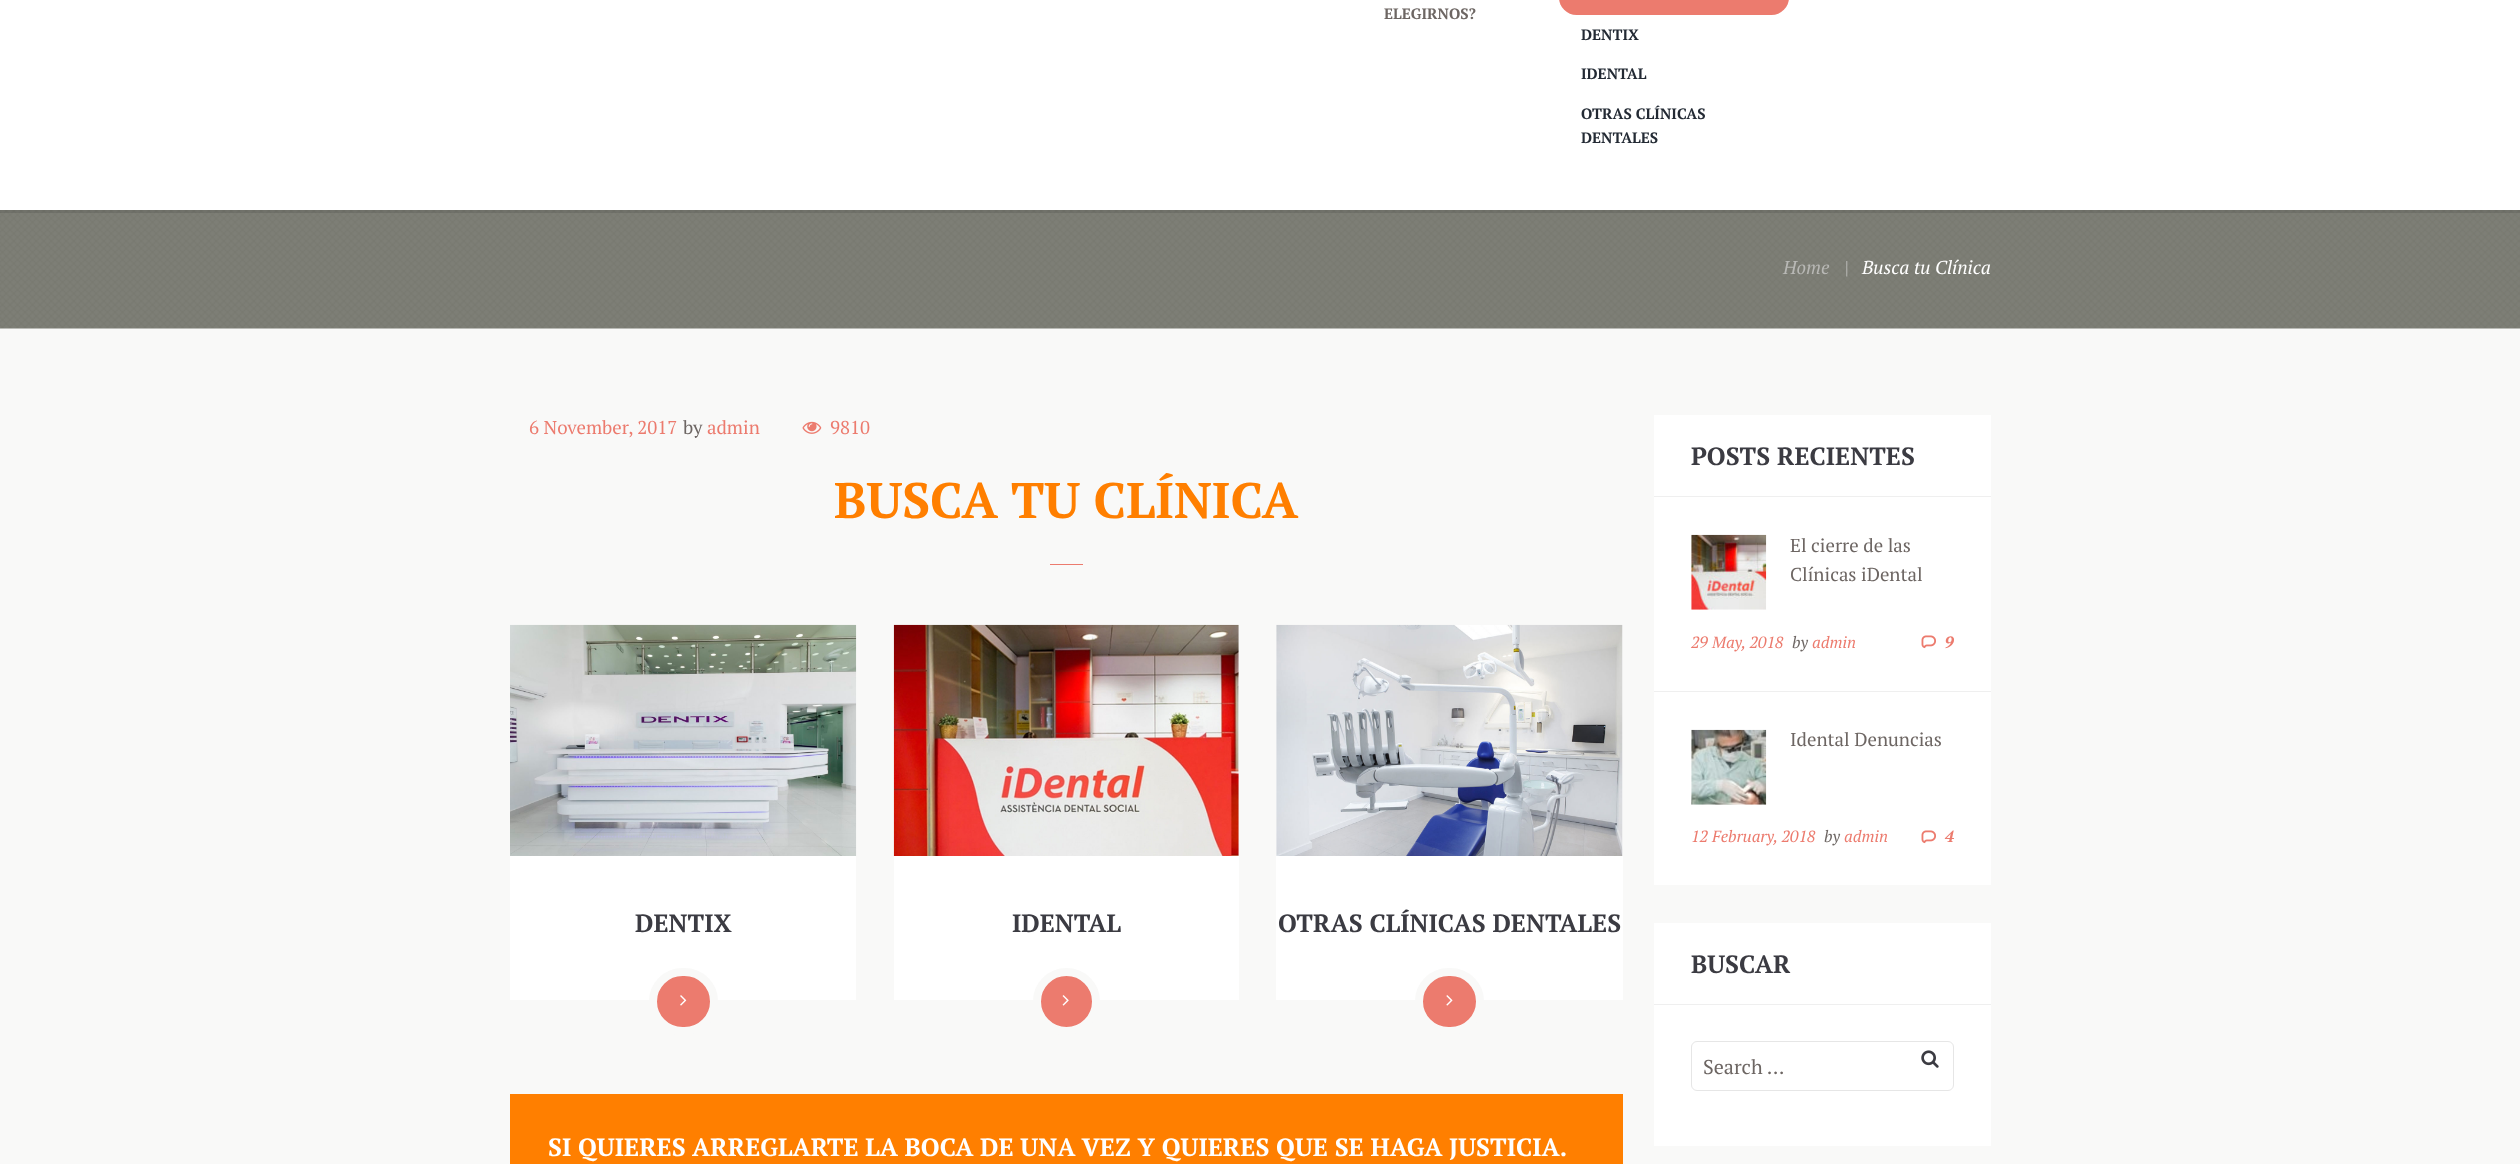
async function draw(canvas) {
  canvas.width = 2520;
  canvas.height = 1164;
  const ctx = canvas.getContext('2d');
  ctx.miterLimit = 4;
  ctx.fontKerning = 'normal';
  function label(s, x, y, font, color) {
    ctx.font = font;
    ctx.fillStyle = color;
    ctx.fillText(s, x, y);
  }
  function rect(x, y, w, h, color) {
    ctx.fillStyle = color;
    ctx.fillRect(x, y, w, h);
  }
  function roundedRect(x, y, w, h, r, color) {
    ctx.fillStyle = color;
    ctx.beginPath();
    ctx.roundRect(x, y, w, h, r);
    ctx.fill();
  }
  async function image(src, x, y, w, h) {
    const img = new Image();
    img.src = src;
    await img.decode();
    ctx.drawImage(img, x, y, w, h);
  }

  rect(0, 0, 2520, 1164, '#f9f9f8');
  rect(0, 0, 2520, 210, '#fff');
  label('ELEGIRNOS?', 1384, 19, 'bold 15px PT Serif', '#6d6663');
  roundedRect(1559, -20, 230, 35, 20, '#ec7b6e');
  label('DENTIX', 1581, 40, 'bold 15px PT Serif', '#232a34');
  label('IDENTAL', 1581, 79, 'bold 15px PT Serif', '#232a34');
  label('OTRAS CLÍNICAS', 1581, 119, 'bold 15px PT Serif', '#232a34');
  label('DENTALES', 1581, 143, 'bold 15px PT Serif', '#232a34');
  await image('assets/img1.png', 0, 210, 2520, 119);
  rect(0, 210, 2520, 3, '#0000001a');
  label('Home', 1783, 274, 'italic 18.75px PT Serif', '#b8b8b5');
  label('|', 1844, 274, 'italic 18.75px PT Serif', '#b8b8b5');
  label('Busca tu Clínica', 1862, 274, 'italic 18.75px PT Serif', '#fff');
  label('6 November, 2017', 529, 434, '18.75px PT Serif', '#ec7b6e');
  label('by', 683, 434, '18.75px PT Serif', '#6d6663');
  label('admin', 707, 434, '18.75px PT Serif', '#ec7b6e');
  await image('assets/img2.png', 802, 421, 20, 13);
  label('9810', 830, 434, '18.75px PT Serif', '#ec7b6e');
  label('BUSCA TU CLÍNICA', 834, 518, 'bold 50px PT Serif', '#ff7f00');
  rect(1050, 564, 33, 1, '#ec7b6e');
  await image('assets/img3.png', 510, 624, 347, 232);
  rect(510, 856, 346, 144, '#fff');
  label('DENTIX', 635, 932, 'bold 25px PT Serif', '#3b3b42');
  ctx.fillStyle = '#ec7b6e';
  ctx.beginPath();
  ctx.roundRect(653, 972, 61, 59, 29.5);
  ctx.fill();
  ctx.strokeStyle = '#f9f9f8';
  ctx.lineWidth = 8;
  ctx.stroke();
  await image('assets/img4.png', 680, 995, 7, 11);
  await image('assets/img5.png', 893, 624, 346, 232);
  rect(894, 856, 345, 144, '#fff');
  label('IDENTAL', 1012, 932, 'bold 25px PT Serif', '#3b3b42');
  ctx.fillStyle = '#ec7b6e';
  ctx.beginPath();
  ctx.arc(1066.5, 1001.5, 29.5, 0, 2 * Math.PI);
  ctx.fill();
  ctx.stroke();
  await image('assets/img6.png', 1062, 995, 7, 11);
  await image('assets/img7.png', 1276, 624, 347, 232);
  rect(1276, 856, 347, 144, '#fff');
  label('OTRAS CLÍNICAS DENTALES', 1278, 932, 'bold 25px PT Serif', '#3b3b42');
  ctx.fillStyle = '#ec7b6e';
  ctx.beginPath();
  ctx.roundRect(1419, 972, 61, 59, 29.5);
  ctx.fill();
  ctx.stroke();
  await image('assets/img8.png', 1446, 995, 7, 11);
  rect(510, 1094, 1113, 70, '#ff7f00');
  label('SI QUIERES ARREGLARTE LA BOCA DE UNA VEZ Y QUIERES QUE SE HAGA JUSTICIA.', 548, 1156, 'bold 25px PT Serif', '#fff');
  rect(1654, 415, 337, 470, '#fff');
  rect(1654, 496, 337, 1, '#efefef');
  label('POSTS RECIENTES', 1691, 465, 'bold 25px PT Serif', '#3b3b42');
  await image('assets/img9.png', 1691, 534, 76, 76);
  label('El cierre de las', 1790, 552, '18.75px PT Serif', '#6d6663');
  label('Clínicas iDental', 1790, 581, '18.75px PT Serif', '#6d6663');
  label('29 May, 2018', 1691, 648, 'italic 16.25px PT Serif', '#ec7b6e');
  label('by', 1792, 648, 'italic 16.25px PT Serif', '#6d6663');
  label('admin', 1812, 648, 'italic 16.25px PT Serif', '#ec7b6e');
  await image('assets/img10.png', 1921, 635, 15, 14);
  label('9', 1945, 648, 'italic bold 16.25px PT Serif', '#ec7b6e');
  rect(1654, 691, 337, 1, '#efefef');
  await image('assets/img11.png', 1691, 729, 76, 76);
  label('Idental Denuncias', 1790, 746, '18.75px PT Serif', '#6d6663');
  label('12 February, 2018', 1691, 842, 'italic 16.25px PT Serif', '#ec7b6e');
  label('by', 1824, 842, 'italic 16.25px PT Serif', '#6d6663');
  label('admin', 1844, 842, 'italic 16.25px PT Serif', '#ec7b6e');
  await image('assets/img10.png', 1921, 830, 15, 14);
  label('4', 1945, 842, 'italic bold 16.25px PT Serif', '#ec7b6e');
  rect(1654, 923, 337, 223, '#fff');
  rect(1654, 1004, 337, 1, '#efefef');
  label('BUSCAR', 1691, 973, 'bold 25px PT Serif', '#3b3b42');
  ctx.beginPath();
  ctx.roundRect(1691.5, 1041.5, 262, 49, 5.5);
  ctx.strokeStyle = '#e6e6e6';
  ctx.lineWidth = 1;
  ctx.stroke();
  label('Search …', 1703, 1074, '20px PT Serif', '#6d6663');
  await image('assets/img12.png', 1921, 1050, 18, 18);
}

draw(document.querySelector('canvas'));
